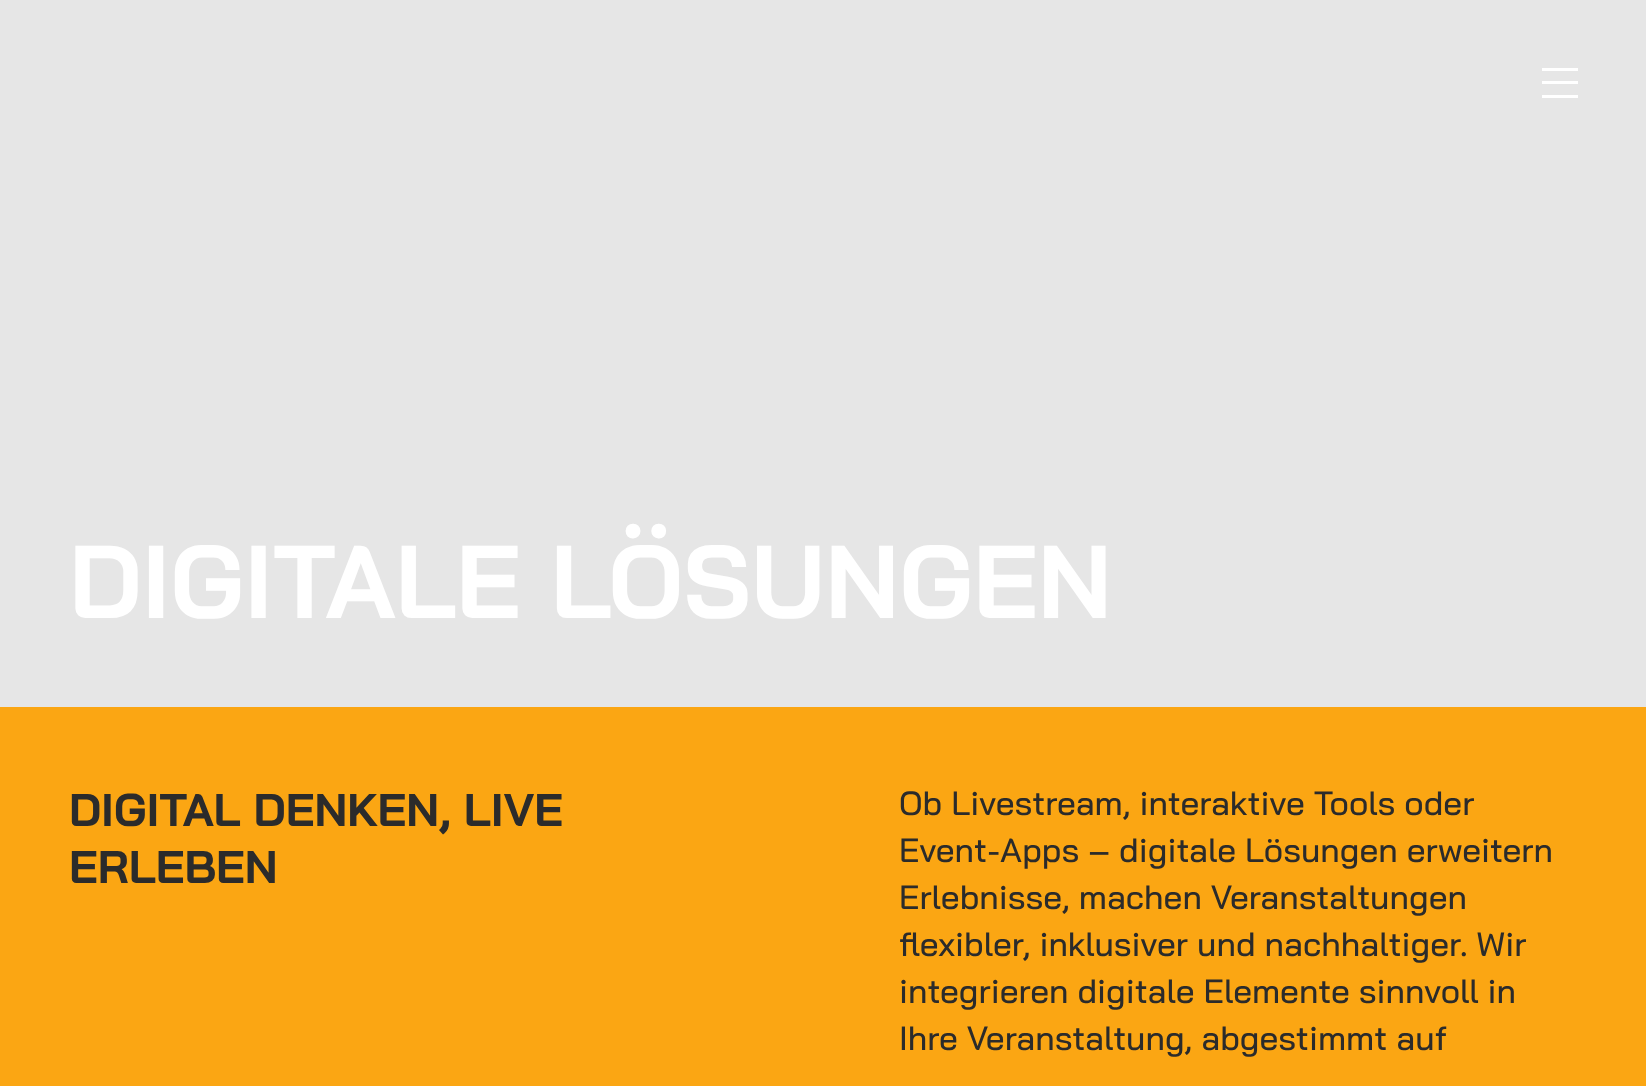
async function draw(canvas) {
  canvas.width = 1646;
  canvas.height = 1086;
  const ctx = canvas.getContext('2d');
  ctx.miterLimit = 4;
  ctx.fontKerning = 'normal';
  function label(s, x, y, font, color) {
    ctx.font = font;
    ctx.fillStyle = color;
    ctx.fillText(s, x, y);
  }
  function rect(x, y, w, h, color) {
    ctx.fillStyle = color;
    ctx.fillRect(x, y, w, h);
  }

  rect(0, 0, 1646, 1086, '#e6e6e6');
  rect(1542, 68, 36, 3, '#fff');
  rect(1542, 81, 36, 3, '#fff');
  rect(1542, 95, 36, 3, '#fff');
  label('DIGITALE LÖSUNGEN', 69, 618, 'bold 103.25px Bai Jamjuree', '#fff');
  rect(0, 707, 1646, 379, '#fba613');
  label('DIGITAL DENKEN, LIVE', 69, 826, 'bold 45.75px Bai Jamjuree', '#2b2b2b');
  label('ERLEBEN', 69, 883, 'bold 45.75px Bai Jamjuree', '#2b2b2b');
  label('Ob Livestream, interaktive Tools oder', 899, 815, '500 33.5px Bai Jamjuree', '#2b2b2b');
  label('Event-Apps – digitale Lösungen erweitern', 899, 862, '500 33.5px Bai Jamjuree', '#2b2b2b');
  label('Erlebnisse, machen Veranstaltungen', 899, 909, '500 33.5px Bai Jamjuree', '#2b2b2b');
  label('flexibler, inklusiver und nachhaltiger. Wir', 899, 956, '500 33.5px Bai Jamjuree', '#2b2b2b');
  label('integrieren digitale Elemente sinnvoll in', 899, 1003, '500 33.5px Bai Jamjuree', '#2b2b2b');
  label('Ihre Veranstaltung, abgestimmt auf', 899, 1050, '500 33.5px Bai Jamjuree', '#2b2b2b');
}

draw(document.querySelector('canvas'));
